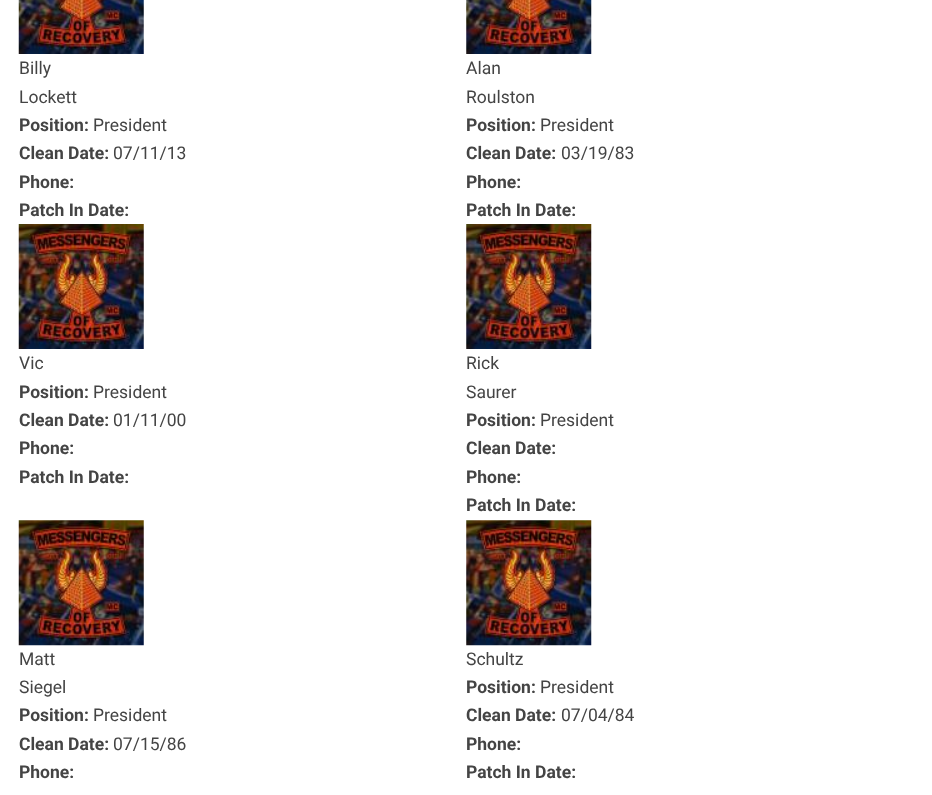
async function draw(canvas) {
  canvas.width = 932;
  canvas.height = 795;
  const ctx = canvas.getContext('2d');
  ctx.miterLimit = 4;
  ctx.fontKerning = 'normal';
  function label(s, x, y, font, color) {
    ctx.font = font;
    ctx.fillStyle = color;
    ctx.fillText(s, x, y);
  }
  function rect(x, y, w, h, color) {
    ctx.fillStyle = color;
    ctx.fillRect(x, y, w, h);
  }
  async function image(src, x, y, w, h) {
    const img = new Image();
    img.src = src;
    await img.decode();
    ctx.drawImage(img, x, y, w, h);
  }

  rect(0, 0, 932, 795, '#fff');
  await image('assets/img1.png', 18, 0, 126, 54);
  label('Billy', 19, 74, '17.5px Roboto', '#444');
  label('Lockett', 19, 103, '17.5px Roboto', '#444');
  label('Position:', 19, 131, 'bold 17.5px Roboto', '#444');
  label('President', 93, 131, '17.5px Roboto', '#444');
  label('Clean Date:', 19, 159, 'bold 17.5px Roboto', '#444');
  label('07/11/13', 113, 159, '17.5px Roboto', '#444');
  label('Phone:', 19, 188, 'bold 17.5px Roboto', '#444');
  label('Patch In Date:', 19, 216, 'bold 17.5px Roboto', '#444');
  await image('assets/img2.png', 466, 0, 126, 54);
  label('Alan', 466, 74, '17.5px Roboto', '#444');
  label('Roulston', 466, 103, '17.5px Roboto', '#444');
  label('Position:', 466, 131, 'bold 17.5px Roboto', '#444');
  label('President', 540, 131, '17.5px Roboto', '#444');
  label('Clean Date:', 466, 159, 'bold 17.5px Roboto', '#444');
  label('03/19/83', 561, 159, '17.5px Roboto', '#444');
  label('Phone:', 466, 188, 'bold 17.5px Roboto', '#444');
  label('Patch In Date:', 466, 216, 'bold 17.5px Roboto', '#444');
  await image('assets/img3.png', 18, 224, 126, 125);
  label('Vic', 19, 369, '17.5px Roboto', '#444');
  label('Position:', 19, 398, 'bold 17.5px Roboto', '#444');
  label('President', 93, 398, '17.5px Roboto', '#444');
  label('Clean Date:', 19, 426, 'bold 17.5px Roboto', '#444');
  label('01/11/00', 113, 426, '17.5px Roboto', '#444');
  label('Phone:', 19, 454, 'bold 17.5px Roboto', '#444');
  label('Patch In Date:', 19, 483, 'bold 17.5px Roboto', '#444');
  await image('assets/img4.png', 466, 224, 126, 125);
  label('Rick', 466, 369, '17.5px Roboto', '#444');
  label('Saurer', 466, 398, '17.5px Roboto', '#444');
  label('Position:', 466, 426, 'bold 17.5px Roboto', '#444');
  label('President', 540, 426, '17.5px Roboto', '#444');
  label('Clean Date:', 466, 454, 'bold 17.5px Roboto', '#444');
  label('Phone:', 466, 483, 'bold 17.5px Roboto', '#444');
  label('Patch In Date:', 466, 511, 'bold 17.5px Roboto', '#444');
  await image('assets/img5.png', 18, 520, 126, 126);
  label('Matt', 19, 665, '17.5px Roboto', '#444');
  label('Siegel', 19, 693, '17.5px Roboto', '#444');
  label('Position:', 19, 721, 'bold 17.5px Roboto', '#444');
  label('President', 93, 721, '17.5px Roboto', '#444');
  label('Clean Date:', 19, 750, 'bold 17.5px Roboto', '#444');
  label('07/15/86', 113, 750, '17.5px Roboto', '#444');
  label('Phone:', 19, 778, 'bold 17.5px Roboto', '#444');
  await image('assets/img6.png', 466, 520, 126, 126);
  label('Schultz', 466, 665, '17.5px Roboto', '#444');
  label('Position:', 466, 693, 'bold 17.5px Roboto', '#444');
  label('President', 540, 693, '17.5px Roboto', '#444');
  label('Clean Date:', 466, 721, 'bold 17.5px Roboto', '#444');
  label('07/04/84', 561, 721, '17.5px Roboto', '#444');
  label('Phone:', 466, 750, 'bold 17.5px Roboto', '#444');
  label('Patch In Date:', 466, 778, 'bold 17.5px Roboto', '#444');
}

draw(document.querySelector('canvas'));
